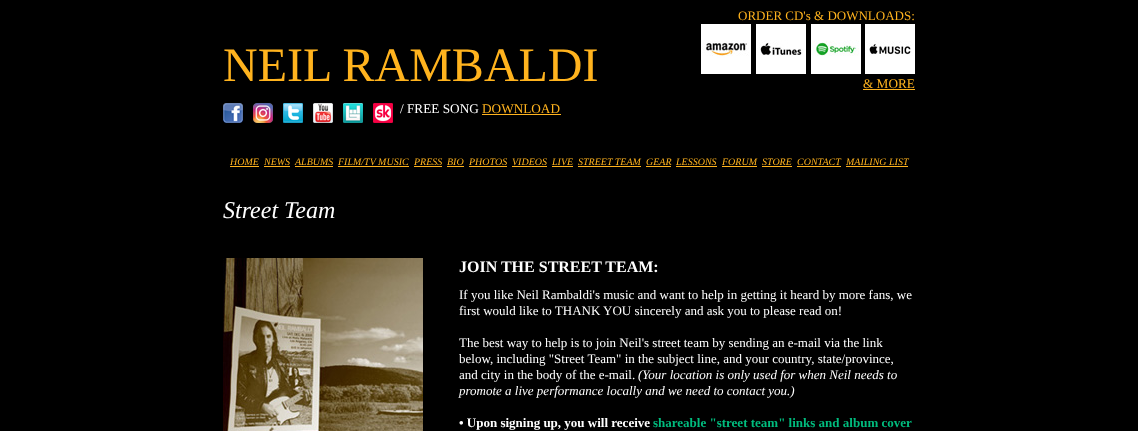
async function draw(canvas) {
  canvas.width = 1138;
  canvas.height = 431;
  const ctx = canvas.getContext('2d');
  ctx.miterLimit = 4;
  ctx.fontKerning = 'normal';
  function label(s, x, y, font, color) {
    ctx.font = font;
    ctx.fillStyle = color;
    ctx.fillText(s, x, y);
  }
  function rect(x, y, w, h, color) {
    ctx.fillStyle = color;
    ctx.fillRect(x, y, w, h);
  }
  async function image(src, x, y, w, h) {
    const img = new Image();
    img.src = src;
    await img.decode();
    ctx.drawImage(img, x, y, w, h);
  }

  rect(0, 0, 1138, 431, '#000');
  label('NEIL RAMBALDI', 223, 81, '48px Liberation Serif', '#ffb31e');
  label('ORDER CD\'s & DOWNLOADS:', 738, 20, '13px Liberation Serif', '#ffb31e');
  await image('assets/img1.png', 701, 24, 50, 50);
  await image('assets/img2.png', 756, 24, 50, 50);
  await image('assets/img3.png', 811, 24, 50, 50);
  await image('assets/img4.png', 865, 24, 50, 50);
  label('& MORE', 863, 88, '13.25px Liberation Serif', '#ffb31e');
  rect(863, 89, 52, 1, '#ffb31e');
  await image('assets/img5.png', 223, 103, 20, 20);
  await image('assets/img6.png', 253, 103, 20, 20);
  await image('assets/img7.png', 283, 103, 20, 20);
  await image('assets/img8.png', 313, 103, 20, 20);
  await image('assets/img9.png', 343, 103, 20, 20);
  await image('assets/img10.png', 373, 103, 20, 20);
  label('/ FREE SONG', 400, 113, '13.25px Liberation Serif', '#fff');
  label('DOWNLOAD', 482, 113, '13.25px Liberation Serif', '#ffb31e');
  rect(482, 114, 79, 1, '#ffb31e');
  label('HOME', 230, 165, 'italic 10px Liberation Serif', '#ffb31e');
  rect(230, 166, 29, 1, '#ffb31e');
  label('NEWS', 264, 165, 'italic 10px Liberation Serif', '#ffb31e');
  rect(264, 166, 26, 1, '#ffb31e');
  label('ALBUMS', 295, 165, 'italic 10px Liberation Serif', '#ffb31e');
  rect(295, 166, 38, 1, '#ffb31e');
  label('FILM/TV MUSIC', 338, 165, 'italic 10px Liberation Serif', '#ffb31e');
  rect(338, 166, 71, 1, '#ffb31e');
  label('PRESS', 414, 165, 'italic 10px Liberation Serif', '#ffb31e');
  rect(414, 166, 28, 1, '#ffb31e');
  label('BIO', 447, 165, 'italic 10px Liberation Serif', '#ffb31e');
  rect(447, 166, 17, 1, '#ffb31e');
  label('PHOTOS', 469, 165, 'italic 10px Liberation Serif', '#ffb31e');
  rect(469, 166, 38, 1, '#ffb31e');
  label('VIDEOS', 512, 165, 'italic 10px Liberation Serif', '#ffb31e');
  rect(512, 166, 35, 1, '#ffb31e');
  label('LIVE', 552, 165, 'italic 10px Liberation Serif', '#ffb31e');
  rect(552, 166, 21, 1, '#ffb31e');
  label('STREET TEAM', 578, 165, 'italic 10px Liberation Serif', '#ffb31e');
  rect(578, 166, 63, 1, '#ffb31e');
  label('GEAR', 646, 165, 'italic 10px Liberation Serif', '#ffb31e');
  rect(646, 166, 25, 1, '#ffb31e');
  label('LESSONS', 676, 165, 'italic 10px Liberation Serif', '#ffb31e');
  rect(676, 166, 41, 1, '#ffb31e');
  label('FORUM', 722, 165, 'italic 10px Liberation Serif', '#ffb31e');
  rect(722, 166, 35, 1, '#ffb31e');
  label('STORE', 762, 165, 'italic 10px Liberation Serif', '#ffb31e');
  rect(762, 166, 30, 1, '#ffb31e');
  label('CONTACT', 797, 165, 'italic 10px Liberation Serif', '#ffb31e');
  rect(797, 166, 44, 1, '#ffb31e');
  label('MAILING LIST', 846, 165, 'italic 10px Liberation Serif', '#ffb31e');
  rect(846, 166, 62, 1, '#ffb31e');
  label('Street Team', 223, 218, 'italic 24px Liberation Serif', '#fff');
  await image('assets/img11.png', 223, 258, 200, 173);
  label('JOIN THE STREET TEAM:', 459, 272, 'bold 16px Liberation Serif', '#fff');
  label('If you like Neil Rambaldi\'s music and want to help in getting it heard by more fans, we', 459, 299, '13px Liberation Serif', '#fff');
  label('first would like to THANK YOU sincerely and ask you to please read on!', 459, 315, '13px Liberation Serif', '#fff');
  label('The best way to help is to join Neil\'s street team by sending an e-mail via the link', 459, 347, '13px Liberation Serif', '#fff');
  label('below, including "Street Team" in the subject line, and your country, state/province,', 459, 363, '13px Liberation Serif', '#fff');
  label('and city in the body of the e-mail.', 459, 379, '13px Liberation Serif', '#fff');
  label('(Your location is only used for when Neil needs to', 638, 379, 'italic 13px Liberation Serif', '#fff');
  label('promote a live performance locally and we need to contact you.)', 459, 395, 'italic 13px Liberation Serif', '#fff');
  label('• Upon signing up, you will receive', 459, 427, 'bold 13px Liberation Serif', '#fff');
  label('shareable "street team" links and album cover', 653, 427, 'bold 13px Liberation Serif', '#00bc7e');
}

draw(document.querySelector('canvas'));
